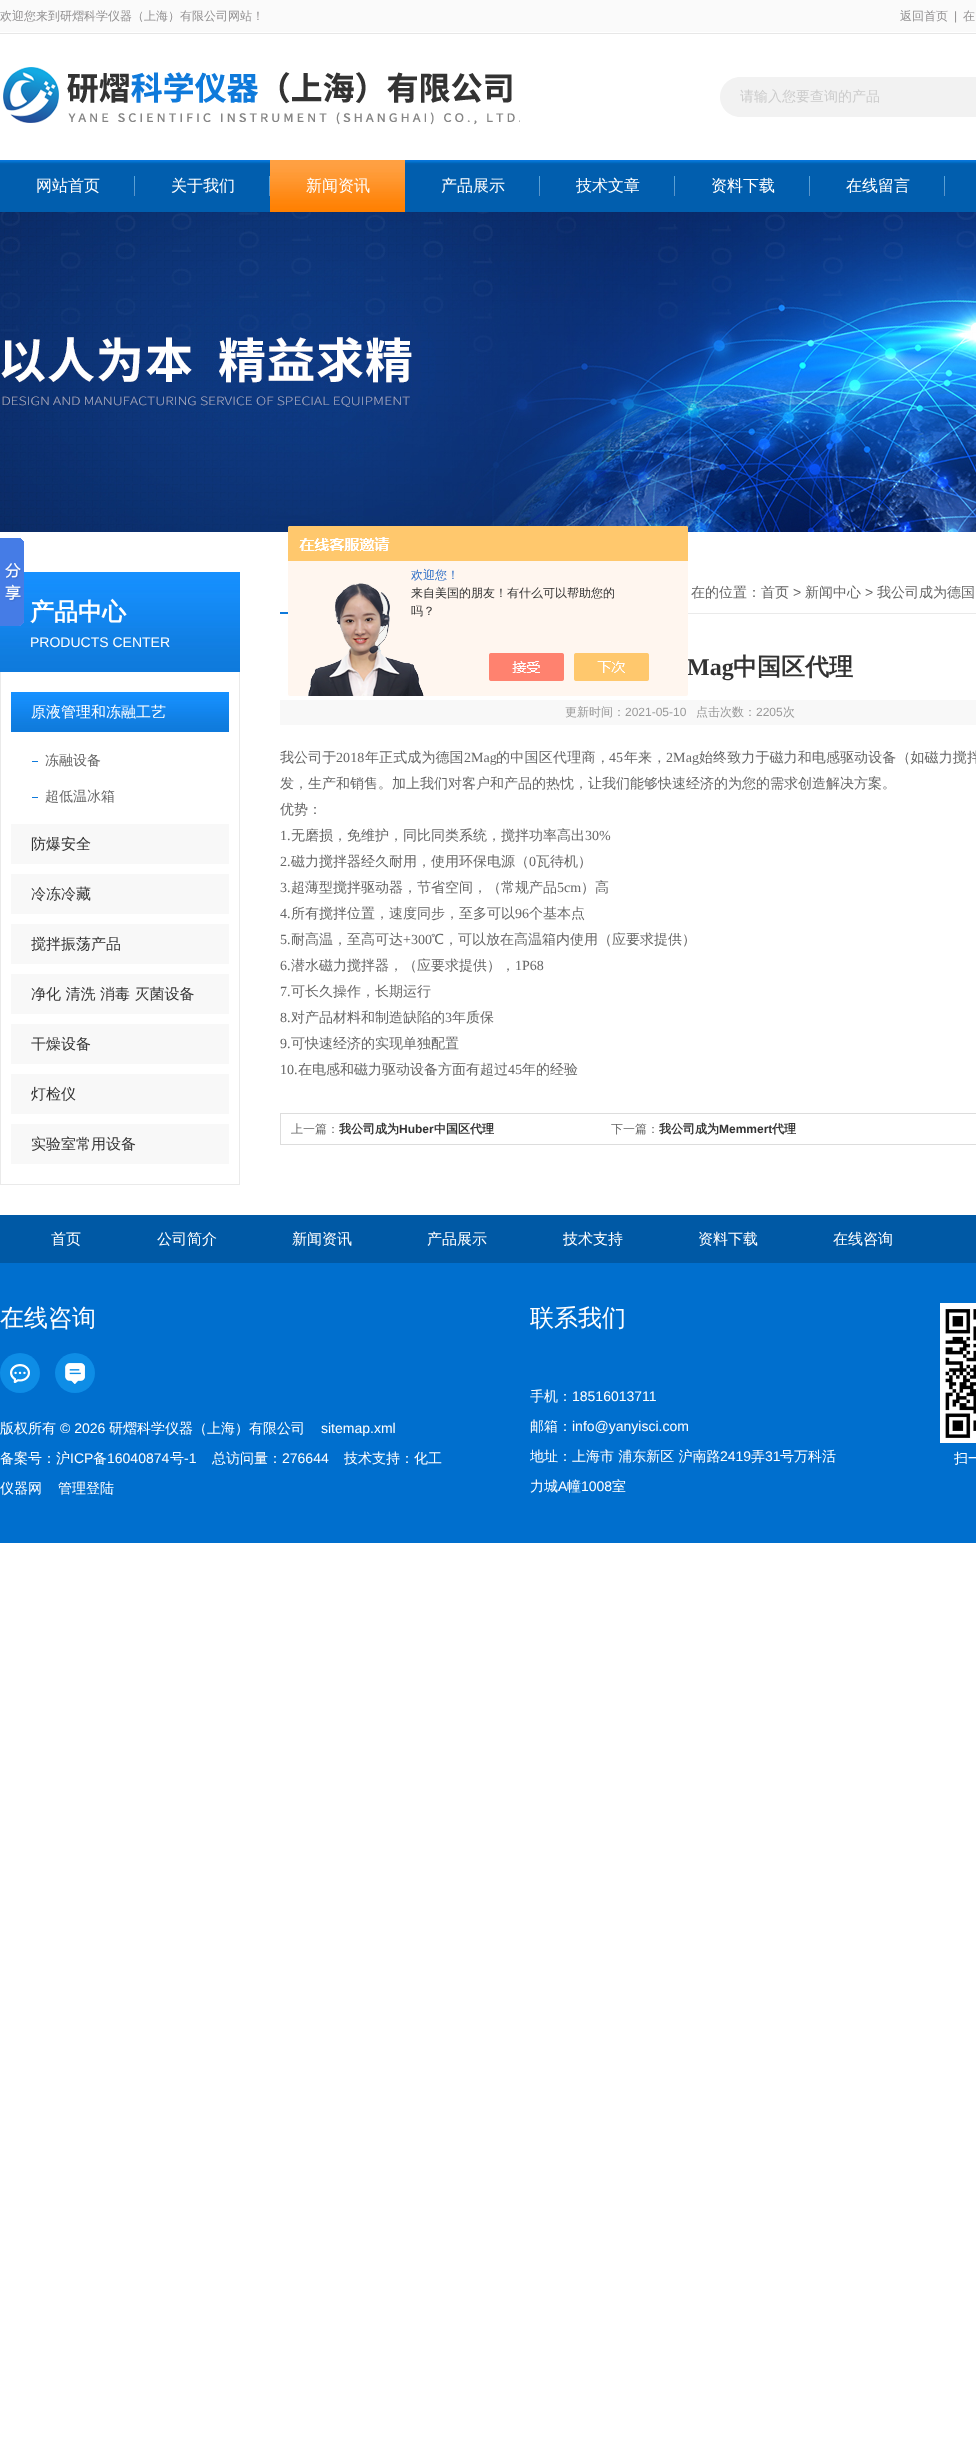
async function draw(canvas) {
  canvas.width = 976;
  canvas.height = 2442;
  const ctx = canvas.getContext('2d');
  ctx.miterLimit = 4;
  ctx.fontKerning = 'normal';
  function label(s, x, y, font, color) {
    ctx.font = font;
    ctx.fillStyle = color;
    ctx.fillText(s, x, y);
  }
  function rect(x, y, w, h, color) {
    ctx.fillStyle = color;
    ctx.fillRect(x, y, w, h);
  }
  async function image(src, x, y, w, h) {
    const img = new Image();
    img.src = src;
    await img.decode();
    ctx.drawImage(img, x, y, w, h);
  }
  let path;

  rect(0, 0, 976, 2442, '#fff');
  await image('assets/img1.png', 0, 0, 976, 34);
  label('欢迎您来到研熠科学仪器（上海）有限公司网站！', 0, 20, '500 12px WenQuanYi Zen Hei', '#929091');
  label('返回首页', 900, 20, '500 12px WenQuanYi Zen Hei', '#929091');
  label('|', 954, 20, '12px Liberation Sans', '#929091');
  label('在', 963, 20, '500 12px WenQuanYi Zen Hei', '#929091');
  await image('assets/img2.png', 3, 67, 517, 58);
  ctx.fillStyle = '#f2f2f2';
  path = new Path2D('M740 77H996V117H740C729 117 720 108 720 97C720 86 729 77 740 77Z');
  ctx.fill(path);
  label('请输入您要查询的产品', 740, 101, '500 14px WenQuanYi Zen Hei', '#ccc');
  await image('assets/img3.png', 0, 160, 976, 52);
  await image('assets/img4.png', 134, 176, 1, 20);
  label('网站首页', 36, 191, '500 16px WenQuanYi Zen Hei', '#fff');
  await image('assets/img4.png', 269, 176, 1, 20);
  label('关于我们', 171, 191, '500 16px WenQuanYi Zen Hei', '#fff');
  await image('assets/img5.png', 270, 160, 135, 52);
  label('新闻资讯', 306, 191, '500 16px WenQuanYi Zen Hei', '#fff');
  await image('assets/img4.png', 539, 176, 1, 20);
  label('产品展示', 441, 191, '500 16px WenQuanYi Zen Hei', '#fff');
  await image('assets/img4.png', 674, 176, 1, 20);
  label('技术文章', 576, 191, '500 16px WenQuanYi Zen Hei', '#fff');
  await image('assets/img4.png', 809, 176, 1, 20);
  label('资料下载', 711, 191, '500 16px WenQuanYi Zen Hei', '#fff');
  await image('assets/img4.png', 944, 176, 1, 20);
  label('在线留言', 846, 191, '500 16px WenQuanYi Zen Hei', '#fff');
  await image('assets/img6.png', 0, 212, 976, 320);
  await image('assets/img9.png', 0, 572, 240, 100);
  await image('assets/img7.png', 0, 538, 24, 88);
  label('Mag', 687, 675, 'bold 24px Liberation Serif', '#333');
  await image('assets/img8.png', 288, 526, 400, 170);
  label('欢迎您！', 411, 579, '500 12px WenQuanYi Zen Hei', '#2e6ec6');
  label('来自美国的朋友！有什么可以帮助您的', 411, 597, '500 12px WenQuanYi Zen Hei', '#333');
  label('吗？', 411, 615, '500 12px WenQuanYi Zen Hei', '#333');
  label('产品中心', 30, 620, 'bold 24px WenQuanYi Zen Hei', '#fff');
  label('PRODUCTS CENTER', 30, 647, '14px Liberation Sans', '#fff');
  rect(239, 672, 1, 513, '#eaeaea');
  rect(0, 1184, 240, 1, '#eaeaea');
  rect(0, 672, 1, 513, '#eaeaea');
  await image('assets/img10.png', 11, 692, 218, 40);
  label('原液管理和冻融工艺', 31, 717, '500 15px WenQuanYi Zen Hei', '#fff');
  rect(32, 761, 6, 1, '#0f7adb');
  label('冻融设备', 45, 765, '500 14px WenQuanYi Zen Hei', '#666');
  rect(32, 797, 6, 1, '#0f7adb');
  label('超低温冰箱', 45, 801, '500 14px WenQuanYi Zen Hei', '#666');
  rect(11, 824, 218, 40, '#f8f8f8');
  label('防爆安全', 31, 849, '500 15px WenQuanYi Zen Hei', '#333');
  rect(11, 874, 218, 40, '#f8f8f8');
  label('冷冻冷藏', 31, 899, '500 15px WenQuanYi Zen Hei', '#333');
  rect(11, 924, 218, 40, '#f8f8f8');
  label('搅拌振荡产品', 31, 949, '500 15px WenQuanYi Zen Hei', '#333');
  rect(11, 974, 218, 40, '#f8f8f8');
  label('净化 清洗 消毒 灭菌设备', 31, 999, '500 15px WenQuanYi Zen Hei', '#333');
  rect(11, 1024, 218, 40, '#f8f8f8');
  label('干燥设备', 31, 1049, '500 15px WenQuanYi Zen Hei', '#333');
  rect(11, 1074, 218, 40, '#f8f8f8');
  label('灯检仪', 31, 1099, '500 15px WenQuanYi Zen Hei', '#333');
  rect(11, 1124, 218, 40, '#f8f8f8');
  label('实验室常用设备', 31, 1149, '500 15px WenQuanYi Zen Hei', '#333');
  rect(688, 613, 288, 1, '#eaeaea');
  label('在的位置：首页', 691, 597, '500 14px WenQuanYi Zen Hei', '#666');
  label('>', 793, 597, '14px Liberation Sans', '#666');
  label('新闻中心', 805, 597, '500 14px WenQuanYi Zen Hei', '#666');
  label('>', 865, 597, '14px Liberation Sans', '#666');
  label('我公司成为德国', 877, 597, '500 14px WenQuanYi Zen Hei', '#666');
  rect(280, 612, 8, 2, '#0f7adb');
  label('中国区代理', 733, 675, 'bold 24px WenQuanYi Zen Hei', '#333');
  rect(280, 700, 696, 25, '#f8f8f8');
  label('更新时间：', 565, 716, '500 12px WenQuanYi Zen Hei', '#999');
  label('2021-05-10', 625, 716, '12px Liberation Sans', '#999');
  label('点击次数：', 696, 716, '500 12px WenQuanYi Zen Hei', '#999');
  label('2205', 756, 716, '12px Liberation Sans', '#999');
  label('次', 783, 716, '500 12px WenQuanYi Zen Hei', '#999');
  ctx.letterSpacing = '0.1px';
  label('我公司于', 280, 762, '500 14px WenQuanYi Zen Hei', '#666');
  label('2018', 336, 762, '14px Liberation Serif', '#666');
  label('年正式成为德国', 365, 762, '500 14px WenQuanYi Zen Hei', '#666');
  ctx.letterSpacing = '0px';
  label('2Mag', 464, 762, '14px Liberation Serif', '#666');
  ctx.letterSpacing = '0.25px';
  label('的中国区代理商，', 496, 762, '500 14px WenQuanYi Zen Hei', '#666');
  ctx.letterSpacing = '0.1px';
  label('45', 609, 762, '14px Liberation Serif', '#666');
  label('年来，', 624, 762, '500 14px WenQuanYi Zen Hei', '#666');
  label('2Mag', 666, 762, '14px Liberation Serif', '#666');
  label('始终致力于磁力和电感驱动设备（如磁力搅拌', 699, 762, '500 14px WenQuanYi Zen Hei', '#666');
  ctx.letterSpacing = '0px';
  label('发，生产和销售。加上我们对客户和产品的热忱，让我们能够快速经济的为您的需求创造解决方案。', 280, 788, '500 14px WenQuanYi Zen Hei', '#666');
  label('优势：', 280, 814, '500 14px WenQuanYi Zen Hei', '#666');
  label('1.', 280, 840, '14px Liberation Serif', '#666');
  label('无磨损，免维护，同比同类系统，搅拌功率高出', 291, 840, '500 14px WenQuanYi Zen Hei', '#666');
  label('30%', 585, 840, '14px Liberation Serif', '#666');
  label('2.', 280, 866, '14px Liberation Serif', '#666');
  label('磁力搅拌器经久耐用，使用环保电源（', 291, 866, '500 14px WenQuanYi Zen Hei', '#666');
  label('0', 529, 866, '14px Liberation Serif', '#666');
  label('瓦待机）', 536, 866, '500 14px WenQuanYi Zen Hei', '#666');
  label('3.', 280, 892, '14px Liberation Serif', '#666');
  label('超薄型搅拌驱动器，节省空间，（常规产品', 291, 892, '500 14px WenQuanYi Zen Hei', '#666');
  label('5cm', 557, 892, '14px Liberation Serif', '#666');
  label('）高', 581, 892, '500 14px WenQuanYi Zen Hei', '#666');
  label('4.', 280, 918, '14px Liberation Serif', '#666');
  label('所有搅拌位置，速度同步，至多可以', 291, 918, '500 14px WenQuanYi Zen Hei', '#666');
  label('96', 515, 918, '14px Liberation Serif', '#666');
  label('个基本点', 529, 918, '500 14px WenQuanYi Zen Hei', '#666');
  label('5.', 280, 944, '14px Liberation Serif', '#666');
  label('耐高温，至高可达', 291, 944, '500 14px WenQuanYi Zen Hei', '#666');
  label('+300', 403, 944, '14px Liberation Serif', '#666');
  label('℃，可以放在高温箱内使用（应要求提供）', 431, 944, '500 14px WenQuanYi Zen Hei', '#666');
  label('6.', 280, 970, '14px Liberation Serif', '#666');
  label('潜水磁力搅拌器，（应要求提供），', 291, 970, '500 14px WenQuanYi Zen Hei', '#666');
  label('1P68', 515, 970, '14px Liberation Serif', '#666');
  label('7.', 280, 996, '14px Liberation Serif', '#666');
  label('可长久操作，长期运行', 291, 996, '500 14px WenQuanYi Zen Hei', '#666');
  label('8.', 280, 1022, '14px Liberation Serif', '#666');
  label('对产品材料和制造缺陷的', 291, 1022, '500 14px WenQuanYi Zen Hei', '#666');
  label('3', 445, 1022, '14px Liberation Serif', '#666');
  label('年质保', 452, 1022, '500 14px WenQuanYi Zen Hei', '#666');
  label('9.', 280, 1048, '14px Liberation Serif', '#666');
  label('可快速经济的实现单独配置', 291, 1048, '500 14px WenQuanYi Zen Hei', '#666');
  label('10.', 280, 1074, '14px Liberation Serif', '#666');
  label('在电感和磁力驱动设备方面有超过', 298, 1074, '500 14px WenQuanYi Zen Hei', '#666');
  label('45', 508, 1074, '14px Liberation Serif', '#666');
  label('年的经验', 522, 1074, '500 14px WenQuanYi Zen Hei', '#666');
  ctx.strokeStyle = '#ddd';
  ctx.strokeRect(280.5, 1113.5, 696, 31);
  label('上一篇：', 291, 1133, '500 12px WenQuanYi Zen Hei', '#666');
  label('我公司成为', 339, 1133, 'bold 12px WenQuanYi Zen Hei', '#333');
  label('Huber', 399, 1133, 'bold 12px Liberation Sans', '#333');
  label('中国区代理', 434, 1133, 'bold 12px WenQuanYi Zen Hei', '#333');
  label('下一篇：', 611, 1133, '500 12px WenQuanYi Zen Hei', '#666');
  label('我公司成为', 659, 1133, 'bold 12px WenQuanYi Zen Hei', '#333');
  label('Memmert', 719, 1133, 'bold 12px Liberation Sans', '#333');
  label('代理', 772, 1133, 'bold 12px WenQuanYi Zen Hei', '#333');
  rect(0, 1263, 976, 280, '#006fce');
  rect(0, 1215, 976, 48, '#0059a5');
  label('首页', 51, 1244, '500 15px WenQuanYi Zen Hei', '#fff');
  label('公司简介', 157, 1244, '500 15px WenQuanYi Zen Hei', '#fff');
  label('新闻资讯', 292, 1244, '500 15px WenQuanYi Zen Hei', '#fff');
  label('产品展示', 427, 1244, '500 15px WenQuanYi Zen Hei', '#fff');
  label('技术支持', 563, 1244, '500 15px WenQuanYi Zen Hei', '#fff');
  label('资料下载', 698, 1244, '500 15px WenQuanYi Zen Hei', '#fff');
  label('在线咨询', 833, 1244, '500 15px WenQuanYi Zen Hei', '#fff');
  label('在线咨询', 0, 1326, '500 24px WenQuanYi Zen Hei', '#fff');
  ctx.fillStyle = '#0e8de6';
  ctx.beginPath();
  ctx.arc(20, 1373, 20, 0, 2 * Math.PI);
  ctx.fill();
  await image('assets/img11.png', 10, 1364, 20, 19);
  ctx.beginPath();
  ctx.arc(75, 1373, 20, 0, 2 * Math.PI);
  ctx.fill();
  await image('assets/img12.png', 65, 1363, 20, 21);
  label('版权所有', 0, 1433, '500 14px WenQuanYi Zen Hei', '#fff');
  label('© 2026', 60, 1433, '14px Liberation Sans', '#fff');
  label('研熠科学仪器（上海）有限公司', 109, 1433, '500 14px WenQuanYi Zen Hei', '#fff');
  label('sitemap.xml', 321, 1433, '14px Liberation Sans', '#fff');
  label('备案号：沪', 0, 1463, '500 14px WenQuanYi Zen Hei', '#fff');
  label('ICP', 70, 1463, '14px Liberation Sans', '#fff');
  label('备', 93, 1463, '500 14px WenQuanYi Zen Hei', '#fff');
  label('16040874', 107, 1463, '14px Liberation Sans', '#fff');
  label('号', 170, 1463, '500 14px WenQuanYi Zen Hei', '#fff');
  label('-1', 184, 1463, '14px Liberation Sans', '#fff');
  label('总访问量：', 212, 1463, '500 14px WenQuanYi Zen Hei', '#fff');
  label('276644', 282, 1463, '14px Liberation Sans', '#fff');
  label('技术支持：化工', 344, 1463, '500 14px WenQuanYi Zen Hei', '#fff');
  label('仪器网', 0, 1493, '500 14px WenQuanYi Zen Hei', '#fff');
  label('管理登陆', 58, 1493, '500 14px WenQuanYi Zen Hei', '#fff');
  label('联系我们', 530, 1326, '500 24px WenQuanYi Zen Hei', '#fff');
  label('手机：', 530, 1401, '500 14px WenQuanYi Zen Hei', '#fff');
  label('18516013711', 572, 1401, '14px Liberation Sans', '#fff');
  label('邮箱：', 530, 1431, '500 14px WenQuanYi Zen Hei', '#fff');
  label('info@yanyisci.com', 572, 1431, '14px Liberation Sans', '#fff');
  label('地址：上海市 浦东新区 沪南路', 530, 1461, '500 14px WenQuanYi Zen Hei', '#fff');
  label('2419', 720, 1461, '14px Liberation Sans', '#fff');
  label('弄', 751, 1461, '500 14px WenQuanYi Zen Hei', '#fff');
  label('31', 765, 1461, '14px Liberation Sans', '#fff');
  label('号万科活', 780, 1461, '500 14px WenQuanYi Zen Hei', '#fff');
  label('力城', 530, 1491, '500 14px WenQuanYi Zen Hei', '#fff');
  label('A', 558, 1491, '14px Liberation Sans', '#fff');
  label('幢', 567, 1491, '500 14px WenQuanYi Zen Hei', '#fff');
  label('1008', 581, 1491, '14px Liberation Sans', '#fff');
  label('室', 612, 1491, '500 14px WenQuanYi Zen Hei', '#fff');
  await image('assets/img13.png', 940, 1303, 36, 140);
  label('扫一', 954, 1463, '500 14px WenQuanYi Zen Hei', '#fff');
}

draw(document.querySelector('canvas'));
